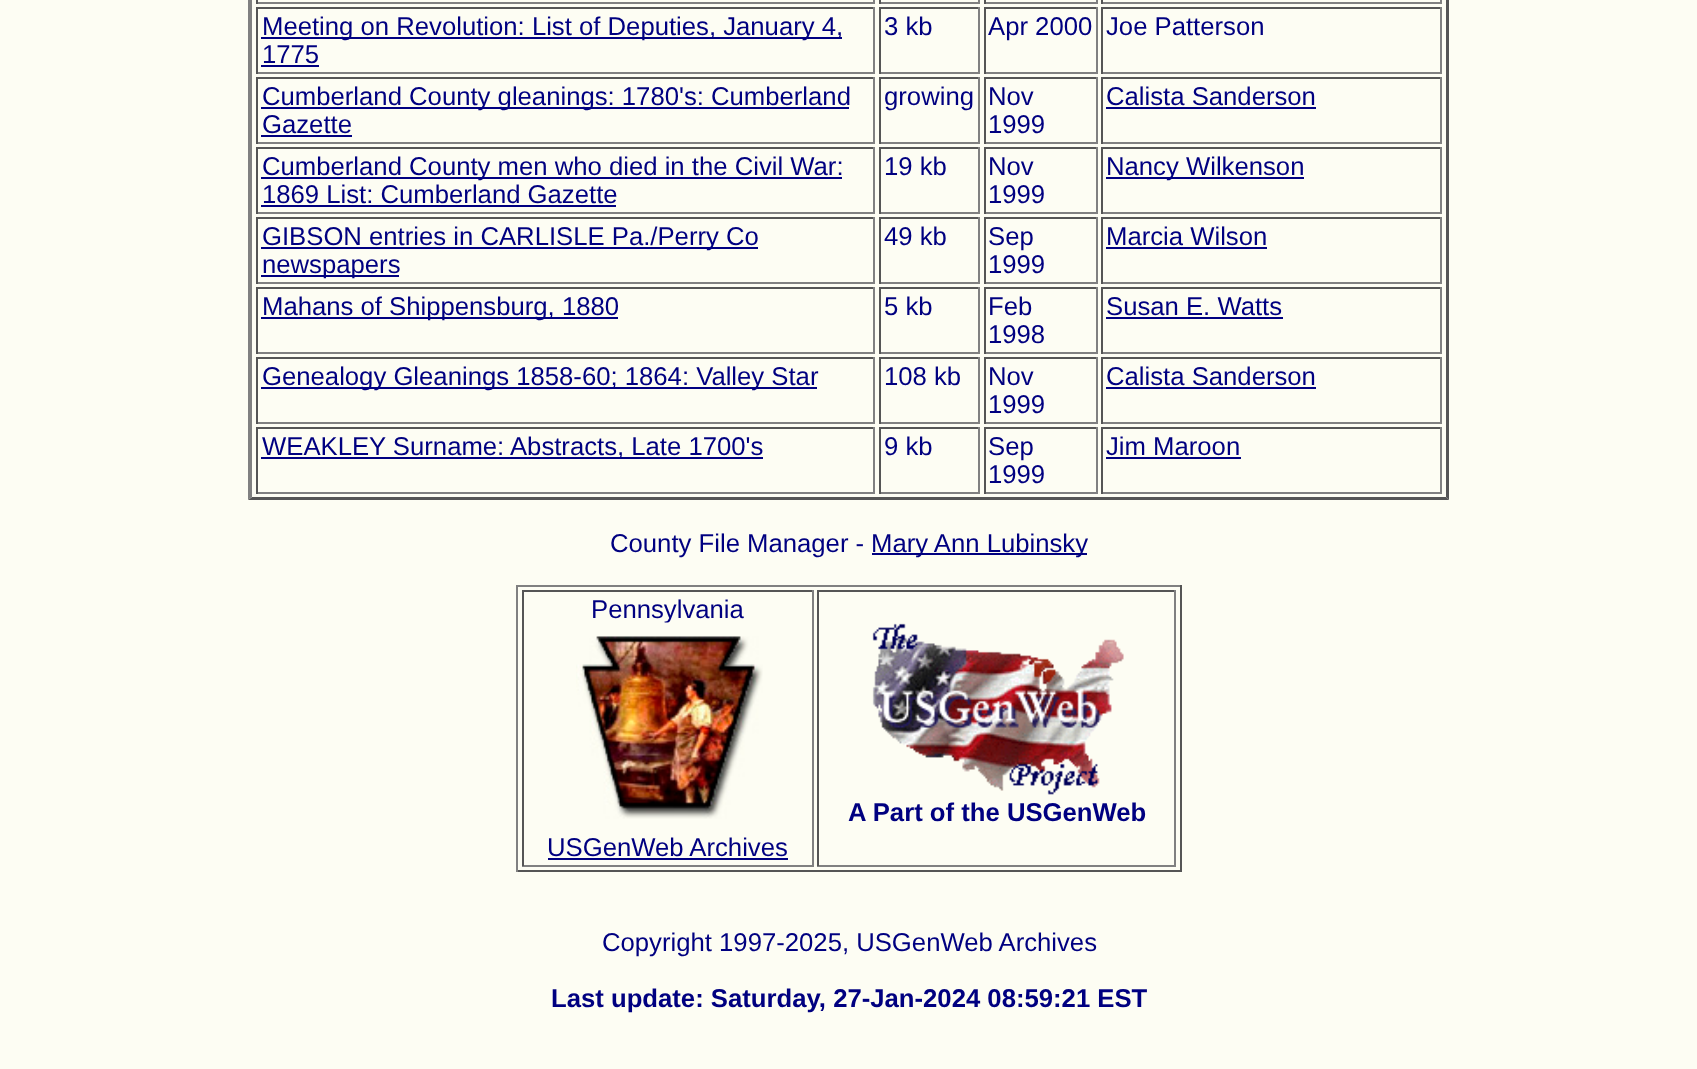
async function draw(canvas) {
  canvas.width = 1697;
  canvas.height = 1069;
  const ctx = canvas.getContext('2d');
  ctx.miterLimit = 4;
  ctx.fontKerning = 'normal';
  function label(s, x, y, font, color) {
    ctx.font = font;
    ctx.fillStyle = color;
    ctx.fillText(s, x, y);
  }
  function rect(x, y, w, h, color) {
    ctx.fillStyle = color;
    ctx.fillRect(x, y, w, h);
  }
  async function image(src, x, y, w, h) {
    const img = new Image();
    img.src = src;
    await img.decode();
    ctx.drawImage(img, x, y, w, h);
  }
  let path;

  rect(0, 0, 1697, 1069, '#fdfdf3');
  ctx.fillStyle = '#555';
  path = new Path2D('M1449-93V500L1446 497V-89Z');
  ctx.fill(path);
  path = new Path2D('M1449 500H248L252 497H1446Z');
  ctx.fill(path);
  ctx.fillStyle = '#808080';
  path = new Path2D('M248 500V-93L252-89V497Z');
  ctx.fill(path);
  rect(873, 0, 2, 4, '#808080');
  rect(256, 2, 619, 2, '#808080');
  rect(256, 0, 2, 4, '#555');
  rect(978, 0, 2, 4, '#808080');
  rect(879, 2, 101, 2, '#808080');
  rect(879, 0, 2, 4, '#555');
  rect(1096, 0, 2, 4, '#808080');
  rect(984, 2, 113, 2, '#808080');
  rect(984, 0, 2, 4, '#555');
  rect(1440, 0, 2, 4, '#808080');
  rect(1101, 2, 341, 2, '#808080');
  rect(1101, 0, 2, 4, '#555');
  rect(256, 7, 619, 2, '#555');
  rect(873, 7, 2, 67, '#808080');
  rect(256, 72, 619, 2, '#808080');
  rect(256, 7, 2, 67, '#555');
  rect(261, 37, 581, 2, '#000080');
  label('Meeting on Revolution: List of Deputies, January 4,', 262, 35, '25.7px Liberation Sans', '#000080');
  label('1775', 262, 63, '25.7px Liberation Sans', '#000080');
  rect(261, 65, 58, 2, '#000080');
  rect(879, 7, 101, 2, '#555');
  rect(978, 7, 2, 67, '#808080');
  rect(879, 72, 101, 2, '#808080');
  rect(879, 7, 2, 67, '#555');
  label('3 kb', 884, 35, '25.7px Liberation Sans', '#000080');
  rect(984, 7, 113, 2, '#555');
  rect(1096, 7, 2, 67, '#808080');
  rect(984, 72, 113, 2, '#808080');
  rect(984, 7, 2, 67, '#555');
  label('Apr 2000', 988, 35, '25.7px Liberation Sans', '#000080');
  rect(1101, 7, 341, 2, '#555');
  rect(1440, 7, 2, 67, '#808080');
  rect(1101, 72, 341, 2, '#808080');
  rect(1101, 7, 2, 67, '#555');
  label('Joe Patterson', 1106, 35, '25.7px Liberation Sans', '#000080');
  rect(256, 77, 619, 2, '#555');
  rect(873, 77, 2, 67, '#808080');
  rect(256, 142, 619, 2, '#808080');
  rect(256, 77, 2, 67, '#555');
  rect(261, 107, 588, 2, '#000080');
  label('Cumberland County gleanings: 1780\'s: Cumberland', 262, 105, '25.7px Liberation Sans', '#000080');
  label('Gazette', 262, 133, '25.7px Liberation Sans', '#000080');
  rect(261, 135, 91, 2, '#000080');
  rect(879, 77, 101, 2, '#555');
  rect(978, 77, 2, 67, '#808080');
  rect(879, 142, 101, 2, '#808080');
  rect(879, 77, 2, 67, '#555');
  label('growing', 884, 105, '25.7px Liberation Sans', '#000080');
  rect(984, 77, 113, 2, '#555');
  rect(1096, 77, 2, 67, '#808080');
  rect(984, 142, 113, 2, '#808080');
  rect(984, 77, 2, 67, '#555');
  label('Nov', 988, 105, '25.7px Liberation Sans', '#000080');
  label('1999', 988, 133, '25.7px Liberation Sans', '#000080');
  rect(1101, 77, 341, 2, '#555');
  rect(1440, 77, 2, 67, '#808080');
  rect(1101, 142, 341, 2, '#808080');
  rect(1101, 77, 2, 67, '#555');
  label('Calista Sanderson', 1106, 105, '25.7px Liberation Sans', '#000080');
  rect(1106, 107, 210, 2, '#000080');
  rect(256, 147, 619, 2, '#555');
  rect(873, 147, 2, 67, '#808080');
  rect(256, 212, 619, 2, '#808080');
  rect(256, 147, 2, 67, '#555');
  rect(261, 177, 581, 2, '#000080');
  label('Cumberland County men who died in the Civil War:', 262, 175, '25.7px Liberation Sans', '#000080');
  label('1869 List: Cumberland Gazette', 262, 203, '25.7px Liberation Sans', '#000080');
  rect(261, 205, 355, 2, '#000080');
  rect(879, 147, 101, 2, '#555');
  rect(978, 147, 2, 67, '#808080');
  rect(879, 212, 101, 2, '#808080');
  rect(879, 147, 2, 67, '#555');
  label('19 kb', 884, 175, '25.7px Liberation Sans', '#000080');
  rect(984, 147, 113, 2, '#555');
  rect(1096, 147, 2, 67, '#808080');
  rect(984, 212, 113, 2, '#808080');
  rect(984, 147, 2, 67, '#555');
  label('Nov', 988, 175, '25.7px Liberation Sans', '#000080');
  label('1999', 988, 203, '25.7px Liberation Sans', '#000080');
  rect(1101, 147, 341, 2, '#555');
  rect(1440, 147, 2, 67, '#808080');
  rect(1101, 212, 341, 2, '#808080');
  rect(1101, 147, 2, 67, '#555');
  rect(1106, 177, 198, 2, '#000080');
  label('Nancy Wilkenson', 1106, 175, '25.7px Liberation Sans', '#000080');
  rect(256, 217, 619, 2, '#555');
  rect(873, 217, 2, 67, '#808080');
  rect(256, 282, 619, 2, '#808080');
  rect(256, 217, 2, 67, '#555');
  rect(261, 247, 497, 2, '#000080');
  label('GIBSON entries in CARLISLE Pa./Perry Co', 262, 245, '25.7px Liberation Sans', '#000080');
  rect(261, 275, 138, 2, '#000080');
  label('newspapers', 262, 273, '25.7px Liberation Sans', '#000080');
  rect(879, 217, 101, 2, '#555');
  rect(978, 217, 2, 67, '#808080');
  rect(879, 282, 101, 2, '#808080');
  rect(879, 217, 2, 67, '#555');
  label('49 kb', 884, 245, '25.7px Liberation Sans', '#000080');
  rect(984, 217, 113, 2, '#555');
  rect(1096, 217, 2, 67, '#808080');
  rect(984, 282, 113, 2, '#808080');
  rect(984, 217, 2, 67, '#555');
  label('Sep', 988, 245, '25.7px Liberation Sans', '#000080');
  label('1999', 988, 273, '25.7px Liberation Sans', '#000080');
  rect(1101, 217, 341, 2, '#555');
  rect(1440, 217, 2, 67, '#808080');
  rect(1101, 282, 341, 2, '#808080');
  rect(1101, 217, 2, 67, '#555');
  label('Marcia Wilson', 1106, 245, '25.7px Liberation Sans', '#000080');
  rect(1106, 247, 161, 2, '#000080');
  rect(256, 287, 619, 2, '#555');
  rect(873, 287, 2, 67, '#808080');
  rect(256, 352, 619, 2, '#808080');
  rect(256, 287, 2, 67, '#555');
  rect(261, 317, 357, 2, '#000080');
  label('Mahans of Shippensburg, 1880', 262, 315, '25.7px Liberation Sans', '#000080');
  rect(879, 287, 101, 2, '#555');
  rect(978, 287, 2, 67, '#808080');
  rect(879, 352, 101, 2, '#808080');
  rect(879, 287, 2, 67, '#555');
  label('5 kb', 884, 315, '25.7px Liberation Sans', '#000080');
  rect(984, 287, 113, 2, '#555');
  rect(1096, 287, 2, 67, '#808080');
  rect(984, 352, 113, 2, '#808080');
  rect(984, 287, 2, 67, '#555');
  label('Feb', 988, 315, '25.7px Liberation Sans', '#000080');
  label('1998', 988, 343, '25.7px Liberation Sans', '#000080');
  rect(1101, 287, 341, 2, '#555');
  rect(1440, 287, 2, 67, '#808080');
  rect(1101, 352, 341, 2, '#808080');
  rect(1101, 287, 2, 67, '#555');
  label('Susan E. Watts', 1106, 315, '25.7px Liberation Sans', '#000080');
  rect(1106, 317, 177, 2, '#000080');
  rect(256, 357, 619, 2, '#555');
  rect(873, 357, 2, 67, '#808080');
  rect(256, 422, 619, 2, '#808080');
  rect(256, 357, 2, 67, '#555');
  rect(261, 387, 556, 2, '#000080');
  label('Genealogy Gleanings 1858-60; 1864: Valley Star', 262, 385, '25.7px Liberation Sans', '#000080');
  rect(879, 357, 101, 2, '#555');
  rect(978, 357, 2, 67, '#808080');
  rect(879, 422, 101, 2, '#808080');
  rect(879, 357, 2, 67, '#555');
  label('108 kb', 884, 385, '25.7px Liberation Sans', '#000080');
  rect(984, 357, 113, 2, '#555');
  rect(1096, 357, 2, 67, '#808080');
  rect(984, 422, 113, 2, '#808080');
  rect(984, 357, 2, 67, '#555');
  label('Nov', 988, 385, '25.7px Liberation Sans', '#000080');
  label('1999', 988, 413, '25.7px Liberation Sans', '#000080');
  rect(1101, 357, 341, 2, '#555');
  rect(1440, 357, 2, 67, '#808080');
  rect(1101, 422, 341, 2, '#808080');
  rect(1101, 357, 2, 67, '#555');
  label('Calista Sanderson', 1106, 385, '25.7px Liberation Sans', '#000080');
  rect(1106, 387, 210, 2, '#000080');
  rect(256, 427, 619, 2, '#555');
  rect(873, 427, 2, 67, '#808080');
  rect(256, 492, 619, 2, '#808080');
  rect(256, 427, 2, 67, '#555');
  rect(261, 457, 502, 2, '#000080');
  label('WEAKLEY Surname: Abstracts, Late 1700\'s', 262, 455, '25.7px Liberation Sans', '#000080');
  rect(879, 427, 101, 2, '#555');
  rect(978, 427, 2, 67, '#808080');
  rect(879, 492, 101, 2, '#808080');
  rect(879, 427, 2, 67, '#555');
  label('9 kb', 884, 455, '25.7px Liberation Sans', '#000080');
  rect(984, 427, 113, 2, '#555');
  rect(1096, 427, 2, 67, '#808080');
  rect(984, 492, 113, 2, '#808080');
  rect(984, 427, 2, 67, '#555');
  label('Sep', 988, 455, '25.7px Liberation Sans', '#000080');
  label('1999', 988, 483, '25.7px Liberation Sans', '#000080');
  rect(1101, 427, 341, 2, '#555');
  rect(1440, 427, 2, 67, '#808080');
  rect(1101, 492, 341, 2, '#808080');
  rect(1101, 427, 2, 67, '#555');
  label('Jim Maroon', 1106, 455, '25.7px Liberation Sans', '#000080');
  rect(1106, 457, 135, 2, '#000080');
  label('County File Manager -', 610, 552, '25.7px Liberation Sans', '#000080');
  rect(872, 553, 215, 2, '#000080');
  label('Mary Ann Lubinsky', 871, 552, '25.7px Liberation Sans', '#000080');
  rect(516, 585, 665, 2, '#808080');
  rect(1180, 585, 2, 287, '#555');
  rect(516, 870, 665, 2, '#555');
  rect(516, 585, 2, 287, '#808080');
  rect(522, 590, 292, 2, '#555');
  rect(812, 590, 2, 276, '#808080');
  rect(522, 865, 292, 2, '#808080');
  rect(522, 590, 2, 276, '#555');
  label('Pennsylvania', 591, 618, '25.7px Liberation Sans', '#000080');
  await image('assets/img1.png', 576, 622, 187, 197);
  label('USGenWeb Archives', 547, 856, '25.7px Liberation Sans', '#000080');
  rect(548, 858, 240, 2, '#000080');
  rect(817, 590, 359, 2, '#555');
  rect(1174, 590, 2, 276, '#808080');
  rect(817, 865, 359, 2, '#808080');
  rect(817, 590, 2, 276, '#555');
  await image('assets/img2.png', 872, 623, 252, 172);
  label('A Part of the USGenWeb', 848, 821, 'bold 25.7px Liberation Sans', '#000080');
  label('Copyright 1997-2025, USGenWeb Archives', 602, 951, '25.7px Liberation Sans', '#000080');
  label('Last update: Saturday, 27-Jan-2024 08:59:21 EST', 551, 1007, 'bold 25.7px Liberation Sans', '#000080');
}

draw(document.querySelector('canvas'));
